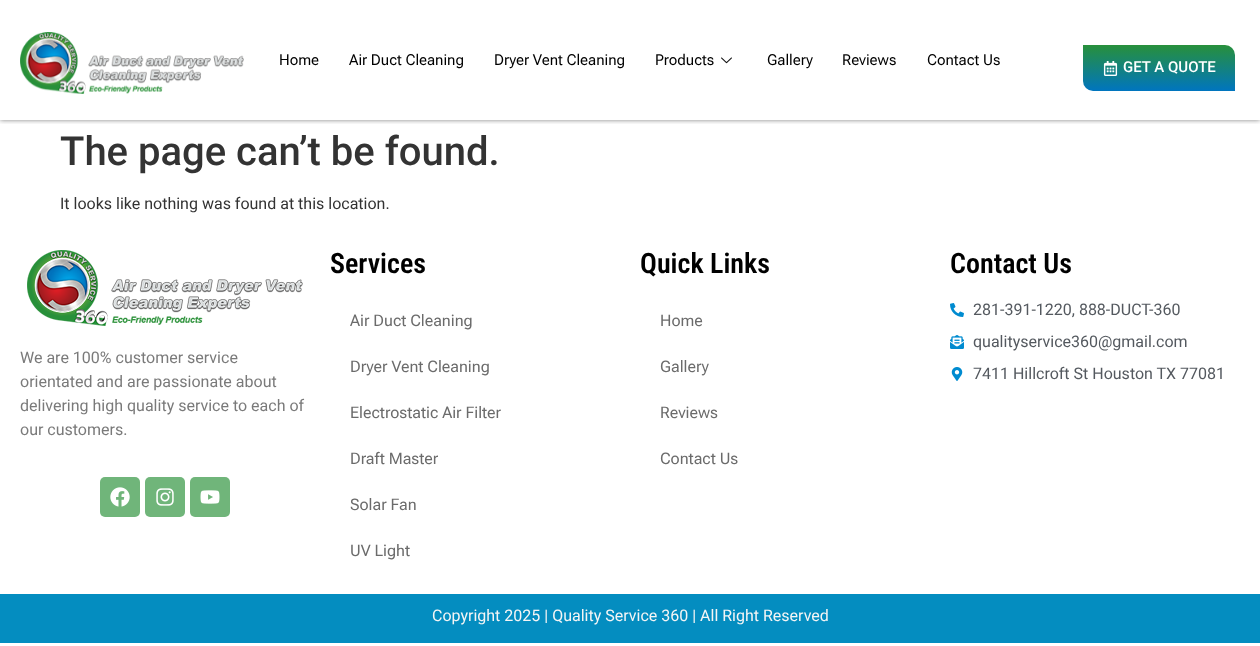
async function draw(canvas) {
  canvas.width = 1260;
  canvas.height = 646;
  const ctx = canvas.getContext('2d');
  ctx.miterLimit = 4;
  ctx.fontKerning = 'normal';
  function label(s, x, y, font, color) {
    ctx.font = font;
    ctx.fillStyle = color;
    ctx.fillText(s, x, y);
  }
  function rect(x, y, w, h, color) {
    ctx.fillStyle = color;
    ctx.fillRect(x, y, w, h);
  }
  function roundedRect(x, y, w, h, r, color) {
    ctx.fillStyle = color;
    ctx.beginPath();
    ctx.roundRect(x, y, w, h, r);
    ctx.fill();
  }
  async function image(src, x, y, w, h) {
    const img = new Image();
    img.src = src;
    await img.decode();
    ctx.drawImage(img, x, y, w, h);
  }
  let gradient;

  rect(0, 0, 1260, 646, '#fff');
  ctx.save();
  ctx.beginPath();
  ctx.rect(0, 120, 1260, 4);
  ctx.clip();
  ctx.fillStyle = '#00000080';
  ctx.filter = 'blur(2.5px)';
  ctx.beginPath();
  ctx.rect(0, 0, 1260, 120);
  ctx.fill();
  ctx.filter = 'none';
  ctx.restore();
  await image('assets/img1.png', 20, 32, 224, 62);
  label('Home', 279, 65, '15px Roboto Flex', '#000');
  label('Air Duct Cleaning', 349, 65, '15px Roboto Flex', '#000');
  label('Dryer Vent Cleaning', 494, 65, '15px Roboto Flex', '#000');
  label('Products', 655, 65, '15px Roboto Flex', '#000');
  await image('assets/img2.png', 721, 57, 11, 7);
  label('Gallery', 767, 65, '15px Roboto Flex', '#000');
  label('Reviews', 842, 65, '15px Roboto Flex', '#000');
  label('Contact Us', 927, 65, '15px Roboto Flex', '#000');
  gradient = ctx.createLinearGradient(1159, 45, 1159, 91);
  gradient.addColorStop(0, '#28903b');
  gradient.addColorStop(1, '#0075bf');
  ctx.fillStyle = gradient;
  ctx.beginPath();
  ctx.roundRect(1083, 45, 152, 46, [0, 10, 0, 10]);
  ctx.fill();
  await image('assets/img3.png', 1103, 61, 15, 15);
  label('GET A QUOTE', 1123, 72, '500 15px Roboto', '#fff');
  label('The page can’t be found.', 60, 165, '500 40px Roboto', '#333');
  label('It looks like nothing was found at this location.', 60, 209, '16px Roboto', '#333');
  label('Services', 330, 273, '600 28px Roboto Condensed', '#000');
  label('Air Duct Cleaning', 350, 326, '16px Roboto Flex', '#6b6b6b');
  label('Dryer Vent Cleaning', 350, 372, '16px Roboto Flex', '#6b6b6b');
  label('Electrostatic Air Filter', 350, 418, '16px Roboto Flex', '#6b6b6b');
  label('Draft Master', 350, 464, '16px Roboto Flex', '#6b6b6b');
  label('Solar Fan', 350, 510, '16px Roboto Flex', '#6b6b6b');
  label('UV Light', 350, 556, '16px Roboto Flex', '#6b6b6b');
  label('Quick Links', 640, 273, '600 28px Roboto Condensed', '#000');
  label('Home', 660, 326, '16px Roboto Flex', '#6b6b6b');
  label('Gallery', 660, 372, '16px Roboto Flex', '#6b6b6b');
  label('Reviews', 660, 418, '16px Roboto Flex', '#6b6b6b');
  label('Contact Us', 660, 464, '16px Roboto Flex', '#6b6b6b');
  label('Contact Us', 950, 273, '600 28px Roboto Condensed', '#000');
  await image('assets/img4.png', 950, 303, 14, 14);
  label('281-391-1220, 888-DUCT-360', 973, 315, '16px Roboto', '#54595f');
  await image('assets/img5.png', 950, 335, 14, 14);
  label('qualityservice360@gmail.com', 973, 347, '16px Roboto', '#54595f');
  await image('assets/img6.png', 951, 367, 12, 14);
  label('7411 Hillcroft St Houston TX 77081', 973, 379, '16px Roboto', '#54595f');
  await image('assets/img7.png', 27, 250, 276, 76);
  label('We are 100% customer service', 20, 363, '16px Roboto', '#7a7a7a');
  label('orientated and are passionate about', 20, 387, '16px Roboto', '#7a7a7a');
  label('delivering high quality service to each of', 20, 411, '16px Roboto', '#7a7a7a');
  label('our customers.', 20, 435, '16px Roboto', '#7a7a7a');
  roundedRect(100, 477, 40, 40, 5, '#70b57a');
  await image('assets/img8.png', 110, 487, 20, 20);
  roundedRect(145, 477, 40, 40, 5, '#70b57a');
  await image('assets/img9.png', 156, 488, 18, 18);
  roundedRect(190, 477, 40, 40, 5, '#70b57a');
  await image('assets/img10.png', 200, 490, 20, 14);
  rect(0, 594, 1260, 49, '#048dc0');
  label('Copyright 2025 | Quality Service 360 | All Right Reserved', 432, 621, '16px Roboto', '#f5f5f5');
}

draw(document.querySelector('canvas'));
